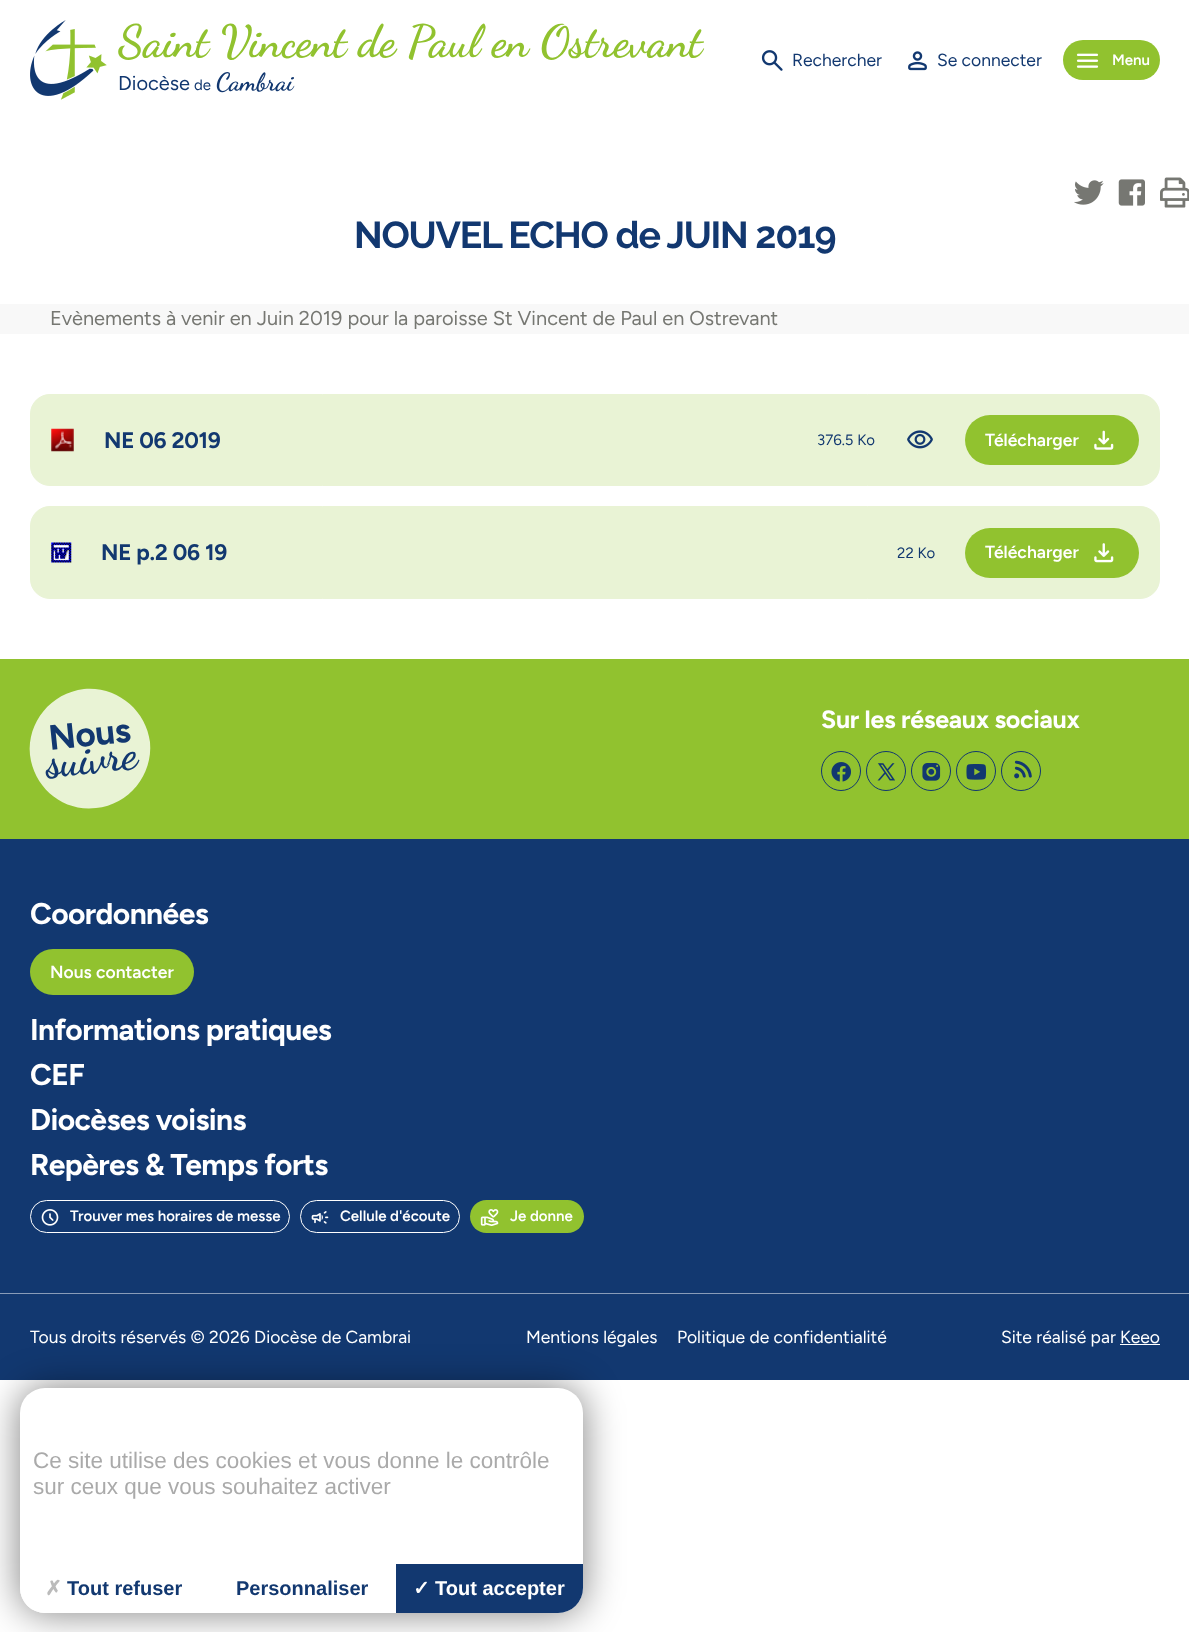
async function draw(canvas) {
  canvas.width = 1189;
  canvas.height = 1632;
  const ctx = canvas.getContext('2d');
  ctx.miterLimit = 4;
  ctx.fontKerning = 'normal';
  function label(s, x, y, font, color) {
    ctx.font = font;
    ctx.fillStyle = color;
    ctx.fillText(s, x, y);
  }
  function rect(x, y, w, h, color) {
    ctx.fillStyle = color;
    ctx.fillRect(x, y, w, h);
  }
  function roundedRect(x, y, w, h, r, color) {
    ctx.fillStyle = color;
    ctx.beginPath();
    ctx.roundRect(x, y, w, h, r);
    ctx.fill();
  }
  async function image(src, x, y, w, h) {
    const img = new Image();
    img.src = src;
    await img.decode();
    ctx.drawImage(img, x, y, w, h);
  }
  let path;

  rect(0, 0, 1189, 1632, '#fff');
  await image('assets/img1.png', 30, 20, 77, 80);
  label('Saint Vincent de Paul en Ostrevant', 118, 56, 'bold 45px Dancing Script', '#91c22f');
  label('Diocèse', 118, 90, '20px Figtree', '#123870');
  label('de', 194, 90, '15px Figtree', '#123870');
  label('Cambrai', 216, 90, 'bold 25px Dancing Script', '#123870');
  await image('assets/img2.png', 761, 50, 22, 21);
  label('Rechercher', 792, 66, '17.5px Figtree', '#123870');
  await image('assets/img3.png', 908, 51, 19, 20);
  label('Se connecter', 937, 66, '17.5px Figtree', '#123870');
  roundedRect(1063, 40, 97, 40, 20, '#91c22f');
  await image('assets/img4.png', 1076, 53, 23, 15);
  label('Menu', 1112, 65, '600 15px Figtree', '#fff');
  await image('assets/img5.png', 1074, 180, 30, 25);
  await image('assets/img6.png', 1118, 179, 27, 27);
  await image('assets/img7.png', 1160, 177, 29, 31);
  ctx.letterSpacing = '-1.2px';
  label('NOUVEL ECHO de JUIN 2019', 354, 248, '100 37.5px Raleway', '#123870');
  rect(0, 304, 1189, 30, '#f8f8f8');
  ctx.letterSpacing = '0px';
  label('Evènements à venir en Juin 2019 pour la paroisse St Vincent de Paul en Ostrevant', 50, 325, '20px Figtree', '#767772');
  ctx.fillStyle = '#e9f3d5';
  ctx.beginPath();
  ctx.roundRect(30.5, 394.5, 1129, 91, 19.5);
  ctx.fill();
  ctx.strokeStyle = '#e9f3d5';
  ctx.stroke();
  await image('assets/img8.png', 51, 428, 23, 24);
  ctx.letterSpacing = '-0.25px';
  label('NE 06 2019', 104, 448, 'bold 22.5px Figtree', '#123870');
  ctx.letterSpacing = '0px';
  label('376.5 Ko', 817, 445, '15px Figtree', '#123870');
  await image('assets/img9.png', 907, 430, 26, 19);
  roundedRect(965, 415, 174, 50, 25, '#91c22f');
  label('Télécharger', 985, 446, '600 17.5px Figtree', '#fff');
  await image('assets/img10.png', 1094, 430, 20, 20);
  ctx.fillStyle = '#e9f3d5';
  ctx.beginPath();
  ctx.roundRect(30.5, 506.5, 1129, 92, 19.5);
  ctx.fill();
  ctx.stroke();
  await image('assets/img11.png', 51, 542, 21, 21);
  ctx.letterSpacing = '-0.25px';
  label('NE p.2 06 19', 101, 560, 'bold 22.5px Figtree', '#123870');
  ctx.letterSpacing = '0px';
  label('22 Ko', 897, 558, '15px Figtree', '#123870');
  roundedRect(965, 528, 174, 50, 25, '#91c22f');
  label('Télécharger', 985, 558, '600 17.5px Figtree', '#fff');
  await image('assets/img12.png', 1094, 543, 20, 20);
  rect(0, 659, 1189, 180, '#91c22f');
  ctx.letterSpacing = '-0.3px';
  label('Sur les réseaux sociaux', 821, 728, 'bold 25px Figtree', '#fff');
  ctx.beginPath();
  ctx.arc(841, 771, 19.5, 0, 2 * Math.PI);
  ctx.strokeStyle = '#123870';
  ctx.stroke();
  await image('assets/img13.png', 831, 762, 20, 20);
  ctx.beginPath();
  ctx.arc(886, 771, 19.5, 0, 2 * Math.PI);
  ctx.stroke();
  await image('assets/img14.png', 877, 763, 18, 18);
  ctx.beginPath();
  ctx.arc(931, 771, 19.5, 0, 2 * Math.PI);
  ctx.stroke();
  await image('assets/img15.png', 922, 763, 19, 18);
  ctx.beginPath();
  ctx.arc(976, 771, 19.5, 0, 2 * Math.PI);
  ctx.stroke();
  await image('assets/img16.png', 966, 764, 21, 16);
  ctx.beginPath();
  ctx.arc(1021, 771, 19.5, 0, 2 * Math.PI);
  ctx.stroke();
  await image('assets/img17.png', 1014, 760, 18, 19);
  ctx.fillStyle = '#e9f3d5';
  path = new Path2D('M84 689C117 686 146 710 150 742C153 775 129 805 96 808C63 812 34 788 30 755C27 722 51 693 84 689Z');
  ctx.fill(path);
  ctx.letterSpacing = '-0.5px';
  ctx.font = 'bold 35px Figtree';
  ctx.fillStyle = '#123870';
  ctx.save();
  ctx.translate(50, 750);
  ctx.rotate(-6 * Math.PI / 180);
  ctx.fillText('Nous', 0, 0);
  ctx.restore();
  ctx.letterSpacing = '-1px';
  ctx.font = 'bold 45px Dancing Script';
  ctx.save();
  ctx.translate(47, 777);
  ctx.rotate(-6 * Math.PI / 180);
  ctx.fillText('suivre', 0, 0);
  ctx.restore();
  rect(0, 839, 1189, 541, '#123870');
  ctx.letterSpacing = '-0.6px';
  label('Coordonnées', 30, 924, 'bold 30px Figtree', '#fff');
  roundedRect(30, 949, 164, 46, 23, '#91c22f');
  ctx.letterSpacing = '0px';
  label('Nous contacter', 50, 978, '600 17.5px Figtree', '#fff');
  ctx.letterSpacing = '-0.6px';
  label('Informations pratiques', 30, 1040, 'bold 30px Figtree', '#fff');
  label('CEF', 30, 1085, 'bold 30px Figtree', '#fff');
  label('Diocèses voisins', 30, 1130, 'bold 30px Figtree', '#fff');
  label('Repères & Temps forts', 30, 1175, 'bold 30px Figtree', '#fff');
  ctx.beginPath();
  ctx.roundRect(30.5, 1200.5, 259, 32, 16);
  ctx.strokeStyle = '#fff';
  ctx.stroke();
  await image('assets/img18.png', 41, 1209, 18, 17);
  ctx.letterSpacing = '0px';
  label('Trouver mes horaires de messe', 70, 1221, '600 15px Figtree', '#fff');
  ctx.beginPath();
  ctx.roundRect(300.5, 1200.5, 159, 32, 16);
  ctx.stroke();
  await image('assets/img19.png', 311, 1211, 18, 13);
  label('Cellule d\'écoute', 340, 1221, '600 15px Figtree', '#fff');
  roundedRect(470, 1200, 114, 33, 16.5, '#91c22f');
  await image('assets/img20.png', 480, 1209, 19, 17);
  label('Je donne', 510, 1221, '600 15px Figtree', '#fff');
  rect(0, 1293, 1189, 1, '#899cb8');
  label('Tous droits réservés © 2026 Diocèse de Cambrai', 30, 1343, '17.5px Figtree', '#fff');
  label('Mentions légales', 526, 1343, '17.5px Figtree', '#fff');
  label('Politique de confidentialité', 677, 1343, '17.5px Figtree', '#fff');
  label('Site réalisé par Keeo', 1001, 1343, '17.5px Figtree', '#fff');
  rect(1120, 1344, 40, 1, '#fff');
  ctx.fillStyle = '#00000080';
  ctx.filter = 'blur(19px)';
  ctx.beginPath();
  ctx.roundRect(20, 1388, 563, 225, 25);
  ctx.fill();
  ctx.filter = 'none';
  roundedRect(20, 1388, 563, 225, 25, '#fff');
  label('Ce site utilise des cookies et vous donne le contrôle', 33, 1468, '22.5px Liberation Sans', '#aaa');
  label('sur ceux que vous souhaitez activer', 33, 1494, '22.5px Liberation Sans', '#aaa');
  ctx.fillStyle = '#fff';
  ctx.beginPath();
  ctx.roundRect(20, 1564, 188, 49, [0, 0, 0, 25]);
  ctx.fill();
  label('✗', 45, 1595, 'bold 20px DejaVu Sans', '#bbb');
  label('Tout refuser', 67, 1595, 'bold 20px Liberation Sans', '#123870');
  ctx.beginPath();
  ctx.roundRect(395, 1564, 188, 49, [0, 0, 25, 0]);
  ctx.fill();
  rect(395, 1564, 1, 49, '#fff');
  label('Personnaliser', 236, 1595, 'bold 20px Liberation Sans', '#123870');
  label('✓', 413, 1595, 'bold 20px DejaVu Sans', '#fff');
  label('Tout accepter', 435, 1595, 'bold 20px Liberation Sans', '#fff');
}

draw(document.querySelector('canvas'));
